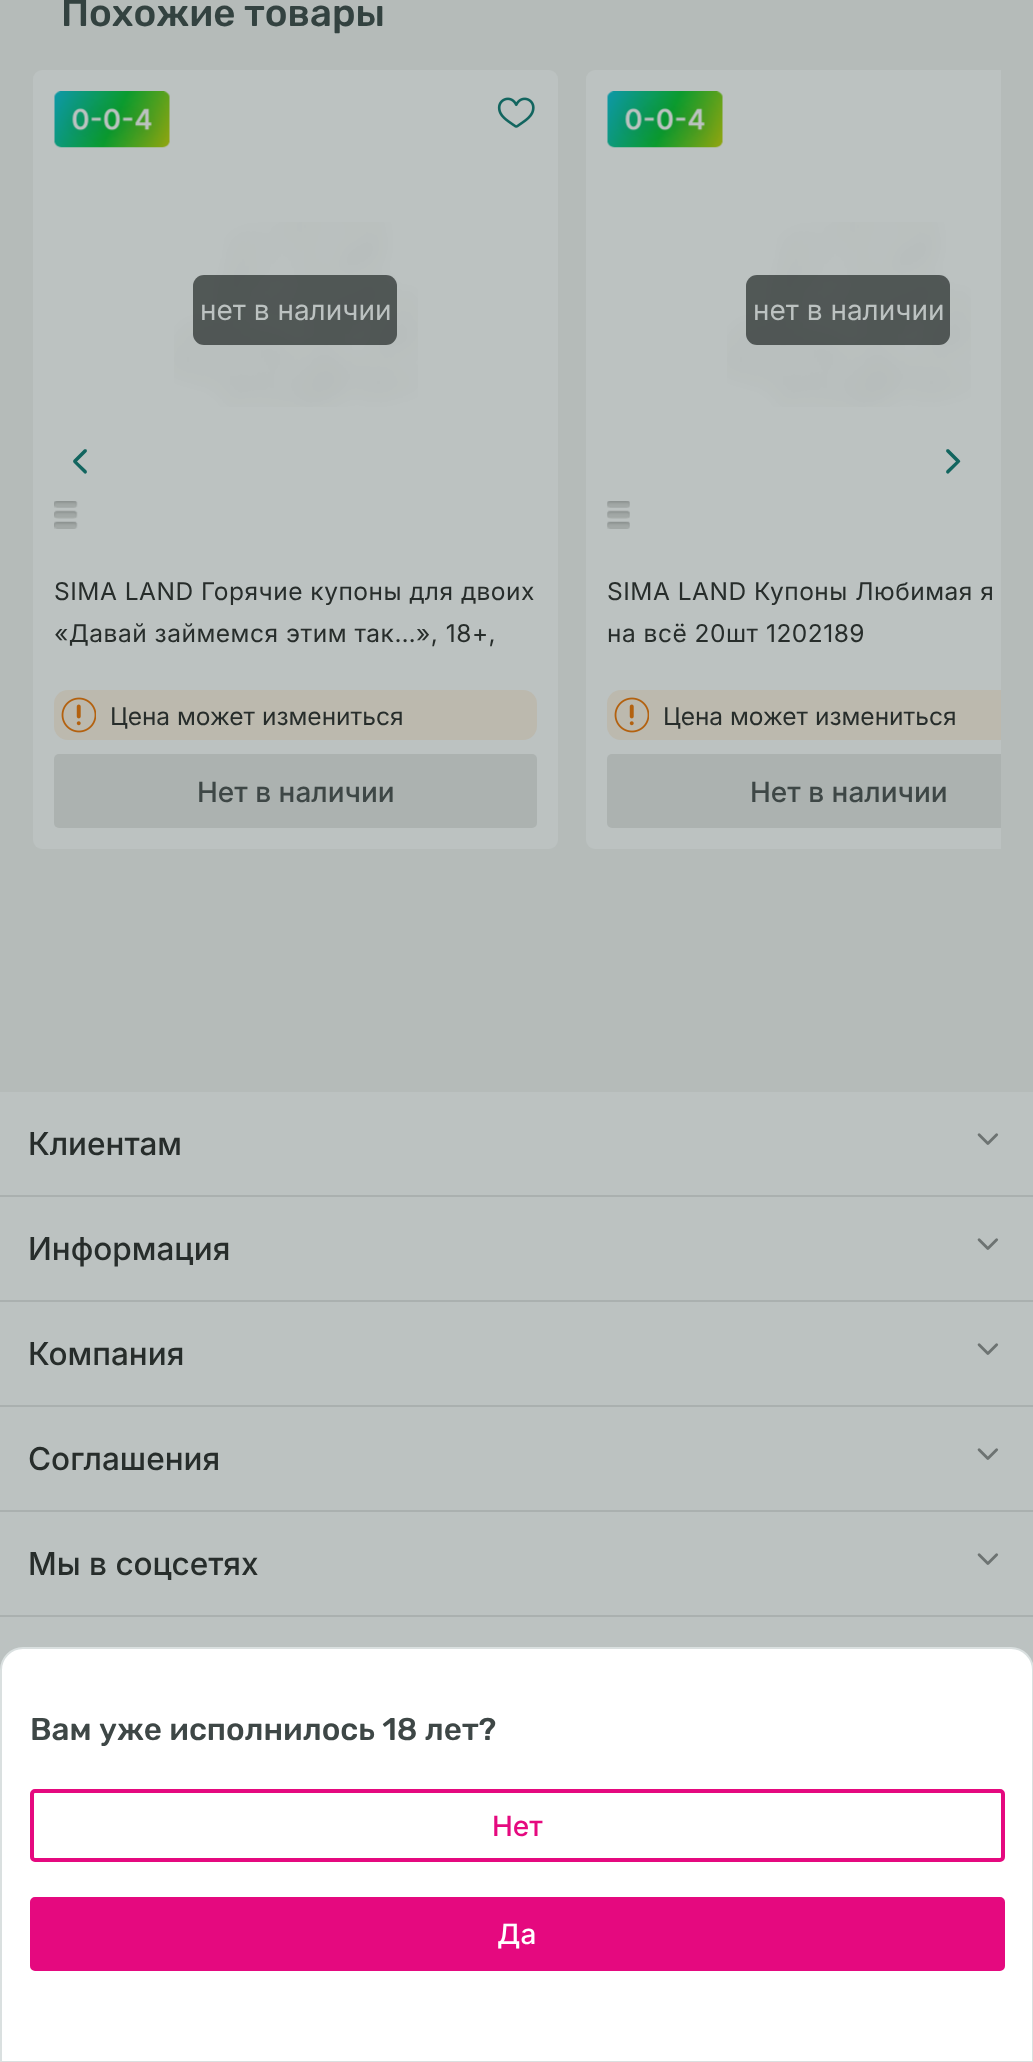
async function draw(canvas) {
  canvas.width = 1033;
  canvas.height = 2062;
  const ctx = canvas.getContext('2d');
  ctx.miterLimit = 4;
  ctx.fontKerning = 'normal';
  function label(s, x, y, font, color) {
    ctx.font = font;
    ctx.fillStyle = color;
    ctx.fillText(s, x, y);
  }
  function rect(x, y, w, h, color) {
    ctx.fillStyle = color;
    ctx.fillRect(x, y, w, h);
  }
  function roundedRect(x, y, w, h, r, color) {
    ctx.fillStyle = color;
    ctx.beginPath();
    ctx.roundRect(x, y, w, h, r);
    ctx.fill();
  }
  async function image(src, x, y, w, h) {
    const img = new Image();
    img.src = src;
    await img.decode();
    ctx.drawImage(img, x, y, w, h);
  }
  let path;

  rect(0, 0, 1033, 2062, '#b5bbb9');
  label('Похожие товары', 61, 26, '300 38.5px Rubik', '#334240');
  roundedRect(33, 70, 525, 779, 9, '#bcc2c1');
  await image('assets/img1.png', 54, 91, 116, 57);
  await image('assets/img2.png', 497, 97, 38, 31);
  await image('assets/img3.png', 174, 222, 244, 185);
  roundedRect(193, 275, 204, 70, 11, '#0a100f99');
  label('нет в наличии', 200, 320, '28px Inter', '#bcc2c1');
  await image('assets/img4.png', 54, 501, 24, 28);
  ctx.letterSpacing = '0.5px';
  label('SIMA LAND Горячие купоны для двоих', 54, 600, '24.5px Inter', '#272d2b');
  label('«Давай займемся этим так…», 18+,', 54, 642, '24.5px Inter', '#272d2b');
  roundedRect(54, 690, 483, 50, 14, '#bcb9ae');
  await image('assets/img5.png', 61, 697, 35, 36);
  ctx.letterSpacing = '0px';
  label('Цена может измениться', 110, 725, '24.5px Inter', '#272d2b');
  roundedRect(54, 754, 483, 74, 5, '#acb2b0');
  label('Нет в наличии', 197, 802, '500 28px Inter', '#3e4746');
  ctx.fillStyle = '#bcc2c1';
  ctx.beginPath();
  ctx.roundRect(586, 70, 415, 779, [9, 0, 0, 9]);
  ctx.fill();
  await image('assets/img6.png', 607, 91, 116, 57);
  await image('assets/img7.png', 727, 222, 244, 185);
  roundedRect(746, 275, 204, 70, 11, '#0a100f99');
  label('нет в наличии', 753, 320, '28px Inter', '#bcc2c1');
  await image('assets/img8.png', 607, 501, 23, 28);
  ctx.letterSpacing = '0.5px';
  label('SIMA LAND Купоны Любимая я', 607, 600, '24.5px Inter', '#272d2b');
  label('на всё 20шт 1202189', 607, 642, '24.5px Inter', '#272d2b');
  ctx.fillStyle = '#bcb9ae';
  ctx.beginPath();
  ctx.roundRect(607, 690, 394, 50, [14, 0, 0, 14]);
  ctx.fill();
  await image('assets/img5.png', 614, 697, 35, 36);
  ctx.letterSpacing = '0px';
  label('Цена может измениться', 663, 725, '24.5px Inter', '#272d2b');
  ctx.fillStyle = '#acb2b0';
  ctx.beginPath();
  ctx.roundRect(607, 754, 394, 74, [5, 0, 0, 5]);
  ctx.fill();
  label('Нет в наличии', 750, 802, '500 28px Inter', '#3e4746');
  ctx.fillStyle = '#12655f';
  path = new Path2D('M86.5 473C86 474 84.5 474 84 473L73.5 462.5C73 462 73 461 73.5 460L84 449.5C84.5 449 86 449 86.5 449.5C87 450.5 87 451.5 86.5 452L77 461.5L86.5 470.5C87 471.5 87 472.5 86.5 473Z');
  ctx.fill(path, 'evenodd');
  path = new Path2D('M946.5 449.5C947.5 449 948.5 449 949 449.5L959.5 460C960.5 461 960.5 462 959.5 462.5L949 473C948.5 474 947.5 474 946.5 473C946 472.5 946 471.5 946.5 470.5L956 461.5L946.5 452C946 451.5 946 450.5 946.5 449.5Z');
  ctx.fill(path, 'evenodd');
  rect(0, 1092, 1033, 578, '#bcc2c1');
  label('Клиентам', 28, 1155, '500 31.5px Inter', '#272d2b');
  await image('assets/img9.png', 977, 1133, 22, 12);
  rect(0, 1195, 1033, 2, '#aab0af');
  label('Информация', 28, 1260, '500 31.5px Inter', '#272d2b');
  await image('assets/img9.png', 977, 1238, 22, 12);
  rect(0, 1300, 1033, 2, '#aab0af');
  label('Компания', 28, 1365, '500 31.5px Inter', '#272d2b');
  await image('assets/img9.png', 977, 1343, 22, 12);
  rect(0, 1405, 1033, 2, '#aab0af');
  label('Соглашения', 28, 1470, '500 31.5px Inter', '#272d2b');
  await image('assets/img9.png', 977, 1448, 22, 12);
  rect(0, 1510, 1033, 2, '#aab0af');
  label('Мы в соцсетях', 28, 1575, '500 31.5px Inter', '#272d2b');
  await image('assets/img9.png', 977, 1553, 22, 12);
  rect(0, 1615, 1033, 2, '#aab0af');
  ctx.fillStyle = '#fff';
  path = new Path2D('M23 1648H1011C1023 1648 1033 1658 1033 1670V2062H1V1670C1 1658 11 1648 23 1648Z');
  ctx.fill(path);
  ctx.strokeStyle = '#dae0e0';
  ctx.lineWidth = 2;
  ctx.stroke(path);
  label('Вам уже исполнилось 18 лет?', 30, 1740, '300 31.5px Rubik', '#3e4746');
  ctx.beginPath();
  ctx.roundRect(32, 1791, 971, 69, 3);
  ctx.strokeStyle = '#e5097f';
  ctx.lineWidth = 4;
  ctx.stroke();
  label('Нет', 492, 1836, '500 28px Inter', '#e5097f');
  ctx.beginPath();
  ctx.roundRect(32, 1899, 971, 70, 3);
  ctx.fill();
  ctx.stroke();
  label('Да', 497, 1944, '500 28px Inter', '#fff');
}

draw(document.querySelector('canvas'));
